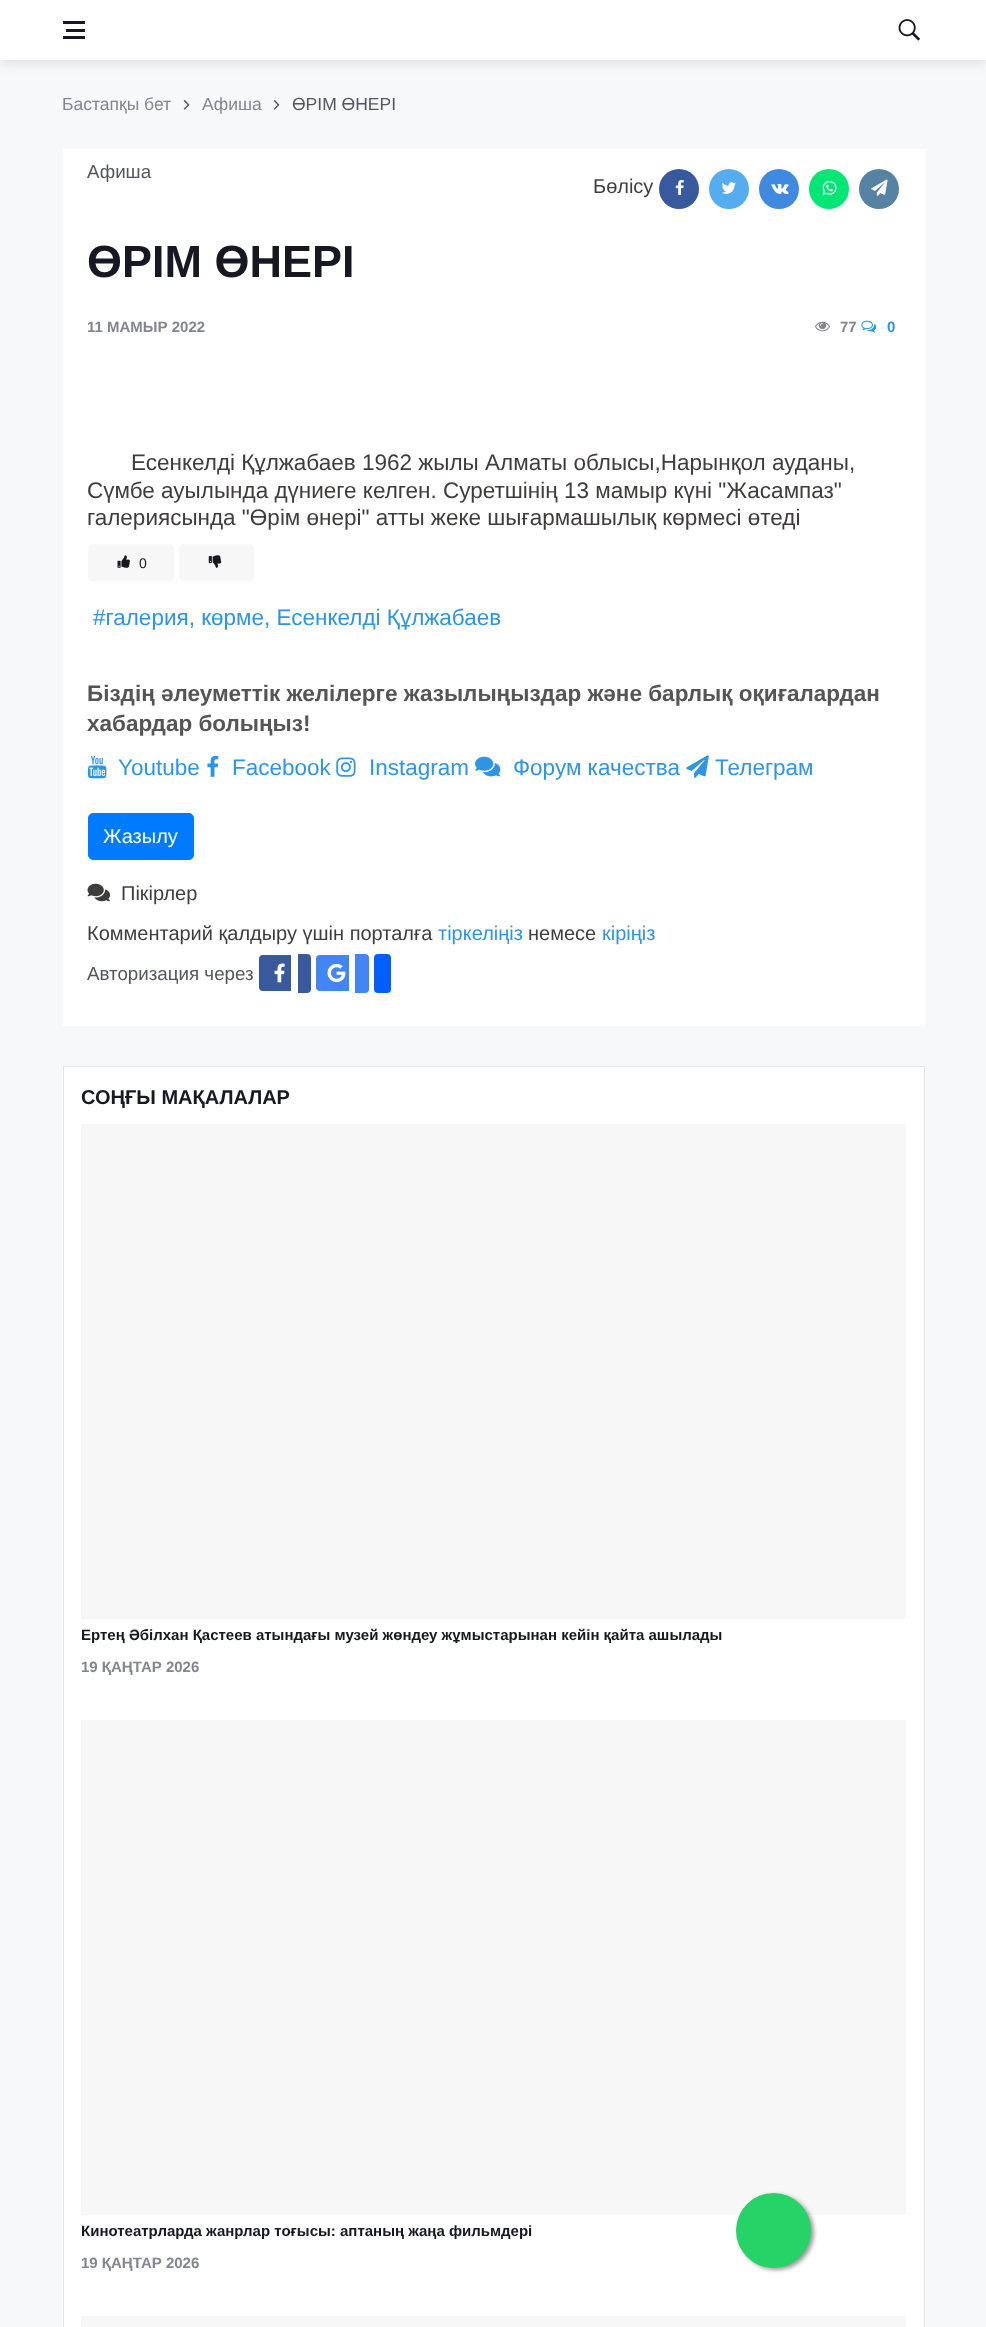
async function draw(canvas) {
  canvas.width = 986;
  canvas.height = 2327;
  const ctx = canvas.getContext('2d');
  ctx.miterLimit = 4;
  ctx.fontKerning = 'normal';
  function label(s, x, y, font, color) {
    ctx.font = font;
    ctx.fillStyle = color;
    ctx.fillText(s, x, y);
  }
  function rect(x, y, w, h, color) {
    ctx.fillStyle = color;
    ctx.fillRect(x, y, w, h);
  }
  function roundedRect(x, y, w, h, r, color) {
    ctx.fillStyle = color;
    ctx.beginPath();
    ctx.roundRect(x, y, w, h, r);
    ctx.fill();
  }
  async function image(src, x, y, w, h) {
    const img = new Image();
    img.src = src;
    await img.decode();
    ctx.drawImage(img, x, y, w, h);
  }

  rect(0, 0, 986, 2327, '#f7f8f9');
  ctx.fillStyle = '#0000001a';
  ctx.filter = 'blur(6px)';
  ctx.beginPath();
  ctx.rect(0, 3, 986, 60);
  ctx.fill();
  ctx.filter = 'none';
  rect(0, 0, 986, 60, '#fff');
  rect(66, 29, 19, 3, '#171821');
  rect(63, 21, 22, 3, '#171821');
  rect(63, 36, 22, 3, '#171821');
  await image('assets/img1.png', 898, 19, 23, 22);
  label('Бастапқы бет', 62, 110, '17.5px Liberation Sans', '#83858f');
  await image('assets/img2.png', 183, 100, 7, 10);
  label('Афиша', 202, 110, '17.5px Liberation Sans', '#83858f');
  await image('assets/img2.png', 273, 100, 7, 10);
  label('ӨРІМ ӨНЕРІ', 292, 110, '17.5px Liberation Sans', '#54555e');
  rect(63, 149, 862, 877, '#fff');
  label('Афиша', 87, 178, '18.75px Liberation Sans', '#54555e');
  label('Бөлісу', 593, 193, '20px Liberation Sans', '#3f3c3c');
  ctx.fillStyle = '#39599f';
  ctx.beginPath();
  ctx.arc(679, 189, 20, 0, 2 * Math.PI);
  ctx.fill();
  await image('assets/img3.png', 675, 179, 9, 17);
  ctx.fillStyle = '#55acee';
  ctx.beginPath();
  ctx.arc(729, 189, 20, 0, 2 * Math.PI);
  ctx.fill();
  await image('assets/img4.png', 721, 182, 15, 12);
  ctx.fillStyle = '#3f8ae0';
  ctx.beginPath();
  ctx.arc(779, 189, 20, 0, 2 * Math.PI);
  ctx.fill();
  await image('assets/img5.png', 771, 183, 18, 11);
  ctx.fillStyle = '#01e675';
  ctx.beginPath();
  ctx.arc(829, 189, 20, 0, 2 * Math.PI);
  ctx.fill();
  await image('assets/img6.png', 822, 181, 15, 14);
  ctx.fillStyle = '#5682a3';
  ctx.beginPath();
  ctx.arc(879, 189, 20, 0, 2 * Math.PI);
  ctx.fill();
  await image('assets/img7.png', 871, 179, 17, 17);
  label('ӨРІМ ӨНЕРІ', 87, 277, 'bold 45px Liberation Sans', '#171821');
  label('11 МАМЫР 2022', 87, 332, 'bold 15px Liberation Sans', '#83858f');
  await image('assets/img8.png', 815, 321, 15, 11);
  label('77', 840, 332, 'bold 15px Liberation Sans', '#83858f');
  await image('assets/img9.png', 861, 320, 16, 13);
  label('0', 887, 332, 'bold 15px Liberation Sans', '#2d95e3');
  label('Есенкелді Құлжабаев 1962 жылы Алматы облысы,Нарынқол ауданы,', 131, 470, '22.5px Liberation Sans', '#3f3c3c');
  label('Сүмбе ауылында дүниеге келген. Суретшінің 13 мамыр күні "Жасампаз"', 87, 498, '22.5px Liberation Sans', '#3f3c3c');
  label('галериясында "Өрім өнері" атты жеке шығармашылық көрмесі өтеді', 87, 525, '22.5px Liberation Sans', '#3f3c3c');
  ctx.fillStyle = '#f7f7f7';
  ctx.beginPath();
  ctx.roundRect(88.5, 544.5, 85, 36, 3.5);
  ctx.fill();
  ctx.strokeStyle = '#f8f9fa';
  ctx.stroke();
  await image('assets/img10.png', 117, 555, 13, 13);
  label('0', 139, 568, '14px Liberation Sans', '#171821');
  ctx.fillStyle = '#f7f7f7';
  ctx.beginPath();
  ctx.roundRect(179.5, 544.5, 74, 36, 3.5);
  ctx.fill();
  ctx.stroke();
  await image('assets/img11.png', 208, 555, 14, 13);
  label('#галерия, көрме, Есенкелді Құлжабаев', 93, 625, '22.5px Liberation Sans', '#2d95e3');
  label('Біздің әлеуметтік желілерге жазылыңыздар және барлық оқиғалардан', 87, 701, 'bold 22.5px Liberation Sans', '#555');
  label('хабардар болыңыз!', 87, 731, 'bold 22.5px Liberation Sans', '#555');
  await image('assets/img12.png', 87, 755, 20, 24);
  label('Youtube', 118, 775, '22.5px Liberation Sans', '#2d95e3');
  await image('assets/img13.png', 207, 755, 12, 22);
  label('Facebook', 232, 775, '22.5px Liberation Sans', '#2d95e3');
  await image('assets/img14.png', 336, 757, 20, 20);
  label('Instagram', 369, 775, '22.5px Liberation Sans', '#2d95e3');
  await image('assets/img15.png', 475, 756, 26, 21);
  label('Форум качества', 513, 775, '22.5px Liberation Sans', '#2d95e3');
  await image('assets/img16.png', 686, 755, 23, 23);
  label('Телеграм', 715, 775, '22.5px Liberation Sans', '#2d95e3');
  ctx.fillStyle = '#007bff';
  ctx.beginPath();
  ctx.roundRect(88.5, 813.5, 105, 46, 4.5);
  ctx.fill();
  ctx.strokeStyle = '#007bff';
  ctx.stroke();
  label('Жазылу', 103, 843, '20px Liberation Sans', '#fff');
  await image('assets/img17.png', 87, 883, 23, 19);
  label('Пікірлер', 121, 900, '20px Liberation Sans', '#3f3c3c');
  label('Комментарий қалдыру үшін порталға', 87, 940, '20px Liberation Sans', '#3f3c3c');
  label('тіркеліңіз', 438, 940, '20px Liberation Sans', '#2d95e3');
  label('немесе', 528, 940, '20px Liberation Sans', '#3f3c3c');
  label('кіріңіз', 602, 940, '20px Liberation Sans', '#2d95e3');
  label('Авторизация через', 87, 980, '18.75px Liberation Sans', '#54555e');
  ctx.fillStyle = '#39599f';
  ctx.beginPath();
  ctx.roundRect(259, 955, 32, 36, [4, 0, 0, 4]);
  ctx.fill();
  ctx.beginPath();
  ctx.roundRect(298, 954, 13, 39, [0, 4, 4, 0]);
  ctx.fill();
  await image('assets/img18.png', 274, 963, 11, 20);
  ctx.fillStyle = '#4285f4';
  ctx.beginPath();
  ctx.roundRect(316, 955, 33, 36, [4, 0, 0, 4]);
  ctx.fill();
  ctx.beginPath();
  ctx.roundRect(355, 954, 14, 39, [0, 4, 4, 0]);
  ctx.fill();
  await image('assets/img19.png', 327, 963, 19, 20);
  roundedRect(374, 954, 17, 39, 4, '#005ff9');
  ctx.fillStyle = '#fff';
  ctx.beginPath();
  ctx.rect(63.5, 1066.5, 861, 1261);
  ctx.fill();
  ctx.strokeStyle = '#e3e4e8';
  ctx.stroke();
  label('СОҢҒЫ МАҚАЛАЛАР', 81, 1104, 'bold 20px Liberation Sans', '#171821');
  rect(81, 1124, 825, 495, '#f7f7f7');
  label('Ертең Әбілхан Қастеев атындағы музей жөндеу жұмыстарынан кейін қайта ашылады', 81, 1640, 'bold 15px Liberation Sans', '#171821');
  label('19 ҚАҢТАР 2026', 81, 1672, 'bold 15px Liberation Sans', '#83858f');
  rect(81, 1720, 825, 495, '#f7f7f7');
  label('Кинотеатрларда жанрлар тоғысы: аптаның жаңа фильмдері', 81, 2236, 'bold 15px Liberation Sans', '#171821');
  label('19 ҚАҢТАР 2026', 81, 2268, 'bold 15px Liberation Sans', '#83858f');
  rect(81, 2316, 825, 11, '#f7f7f7');
  ctx.fillStyle = '#999';
  ctx.filter = 'blur(2px)';
  ctx.beginPath();
  ctx.roundRect(739, 2195, 75, 75, 37.5);
  ctx.fill();
  ctx.filter = 'none';
  ctx.fillStyle = '#25d366';
  ctx.beginPath();
  ctx.arc(773.5, 2230.5, 37.5, 0, 2 * Math.PI);
  ctx.fill();
}

draw(document.querySelector('canvas'));
